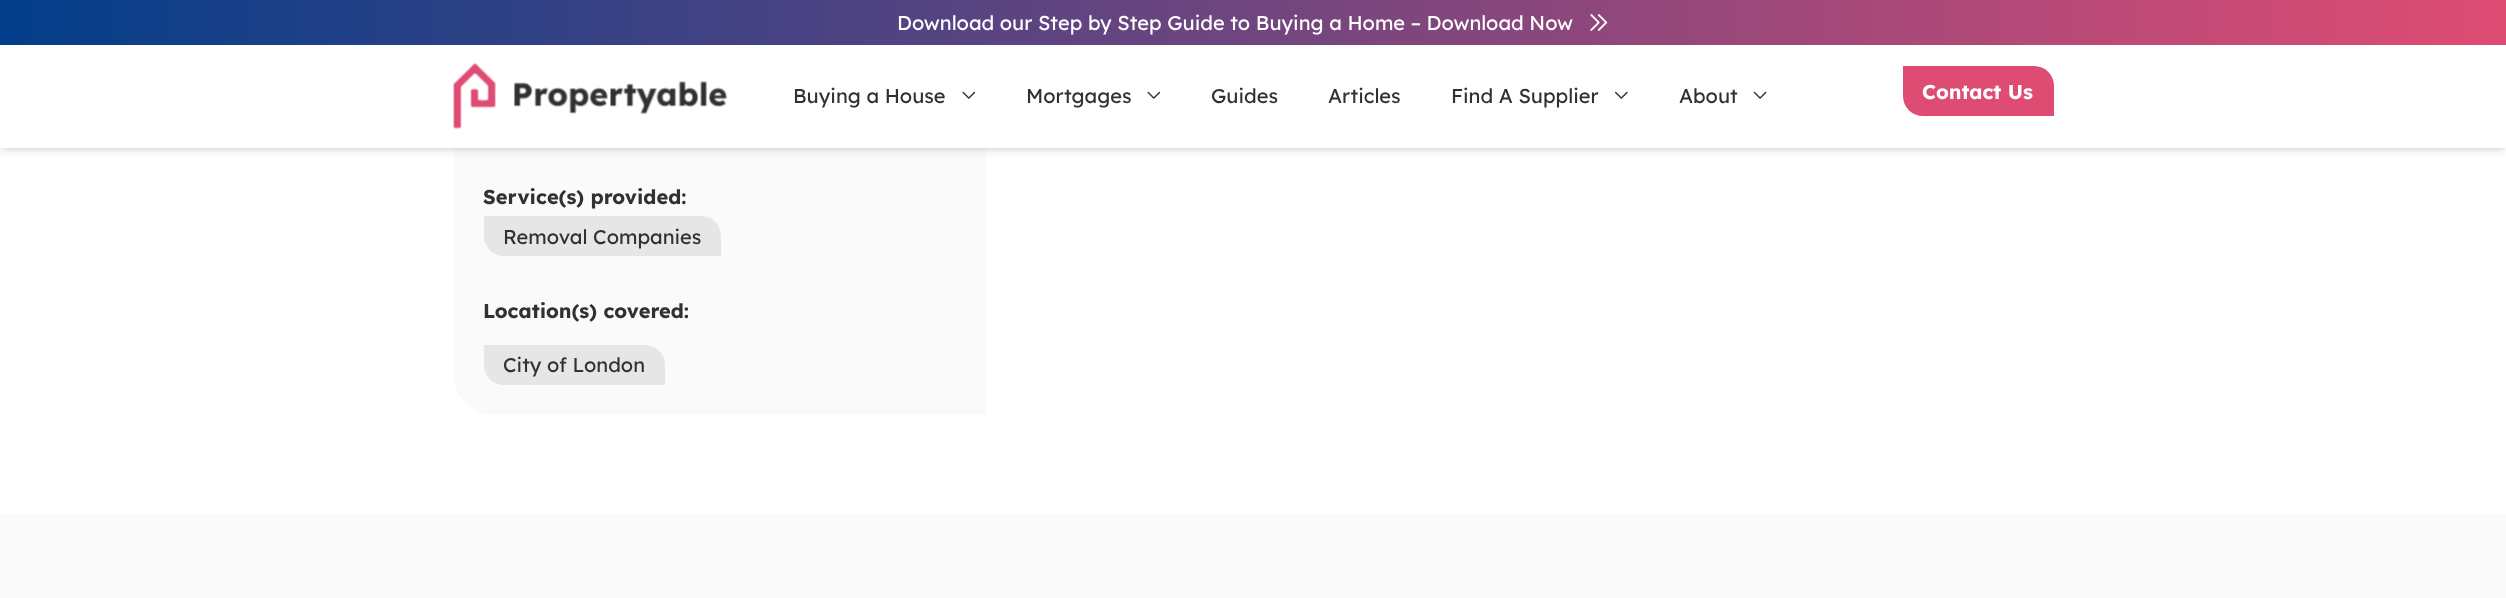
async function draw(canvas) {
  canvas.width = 2506;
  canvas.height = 598;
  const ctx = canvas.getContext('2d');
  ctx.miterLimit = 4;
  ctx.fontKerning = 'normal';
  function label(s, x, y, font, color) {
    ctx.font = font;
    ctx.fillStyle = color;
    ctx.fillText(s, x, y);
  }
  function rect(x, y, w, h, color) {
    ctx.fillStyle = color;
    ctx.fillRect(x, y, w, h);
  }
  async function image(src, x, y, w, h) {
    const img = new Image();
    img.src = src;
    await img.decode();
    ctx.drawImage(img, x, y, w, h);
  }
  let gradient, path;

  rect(0, 0, 2506, 598, '#fff');
  ctx.fillStyle = '#fafafa';
  path = new Path2D('M454-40H946C968-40 986-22 986 0V415H494C472 415 454 397 454 375Z');
  ctx.fill(path);
  ctx.fillStyle = '#0000001a';
  ctx.filter = 'blur(2.5px)';
  ctx.beginPath();
  ctx.rect(3, 5, 2501, 143);
  ctx.fill();
  ctx.filter = 'none';
  ctx.filter = 'blur(4px)';
  ctx.beginPath();
  ctx.rect(1, 6, 2504, 145);
  ctx.fill();
  ctx.filter = 'none';
  rect(0, 45, 2506, 103, '#fff');
  gradient = ctx.createLinearGradient(0, 23, 2506, 22);
  gradient.addColorStop(0, '#023e8a');
  gradient.addColorStop(1, '#df4c73');
  ctx.fillStyle = gradient;
  ctx.fillRect(0, 0, 2506, 45);
  label('Download our Step by Step Guide to Buying a Home – Download Now', 897, 30, '20px Lexend Deca', '#fff');
  await image('assets/img1.png', 1590, 14, 18, 17);
  await image('assets/img2.png', 453, 63, 275, 67);
  label('Buying a House', 793, 103, '20px Lexend Deca', '#313131');
  await image('assets/img3.png', 962, 91, 14, 8);
  label('Mortgages', 1026, 103, '20px Lexend Deca', '#313131');
  await image('assets/img3.png', 1147, 91, 14, 8);
  label('Guides', 1211, 103, '20px Lexend Deca', '#313131');
  label('Articles', 1328, 103, '20px Lexend Deca', '#313131');
  label('Find A Supplier', 1451, 103, '20px Lexend Deca', '#313131');
  await image('assets/img4.png', 1615, 91, 13, 8);
  label('About', 1679, 103, '20px Lexend Deca', '#313131');
  await image('assets/img5.png', 1753, 91, 14, 8);
  ctx.fillStyle = '#df4c73';
  ctx.beginPath();
  ctx.roundRect(1903, 66, 151, 50, [0, 20, 0, 20]);
  ctx.fill();
  label('Contact Us', 1922, 99, 'bold 20px Lexend Deca', '#fff');
  label('Service(s) provided:', 483, 204, 'bold 20px Lexend Deca', '#313131');
  ctx.fillStyle = '#e6e6e6';
  ctx.beginPath();
  ctx.roundRect(484, 216, 237, 40, [0, 20, 0, 20]);
  ctx.fill();
  label('Removal Companies', 503, 244, '20px Lexend Deca', '#313131');
  label('Location(s) covered:', 483, 318, 'bold 20px Lexend Deca', '#313131');
  ctx.fillStyle = '#e6e6e6';
  ctx.beginPath();
  ctx.roundRect(484, 345, 181, 40, [0, 20, 0, 20]);
  ctx.fill();
  label('City of London', 503, 372, '20px Lexend Deca', '#313131');
  rect(0, 515, 2506, 83, '#fafafa');
}

draw(document.querySelector('canvas'));
